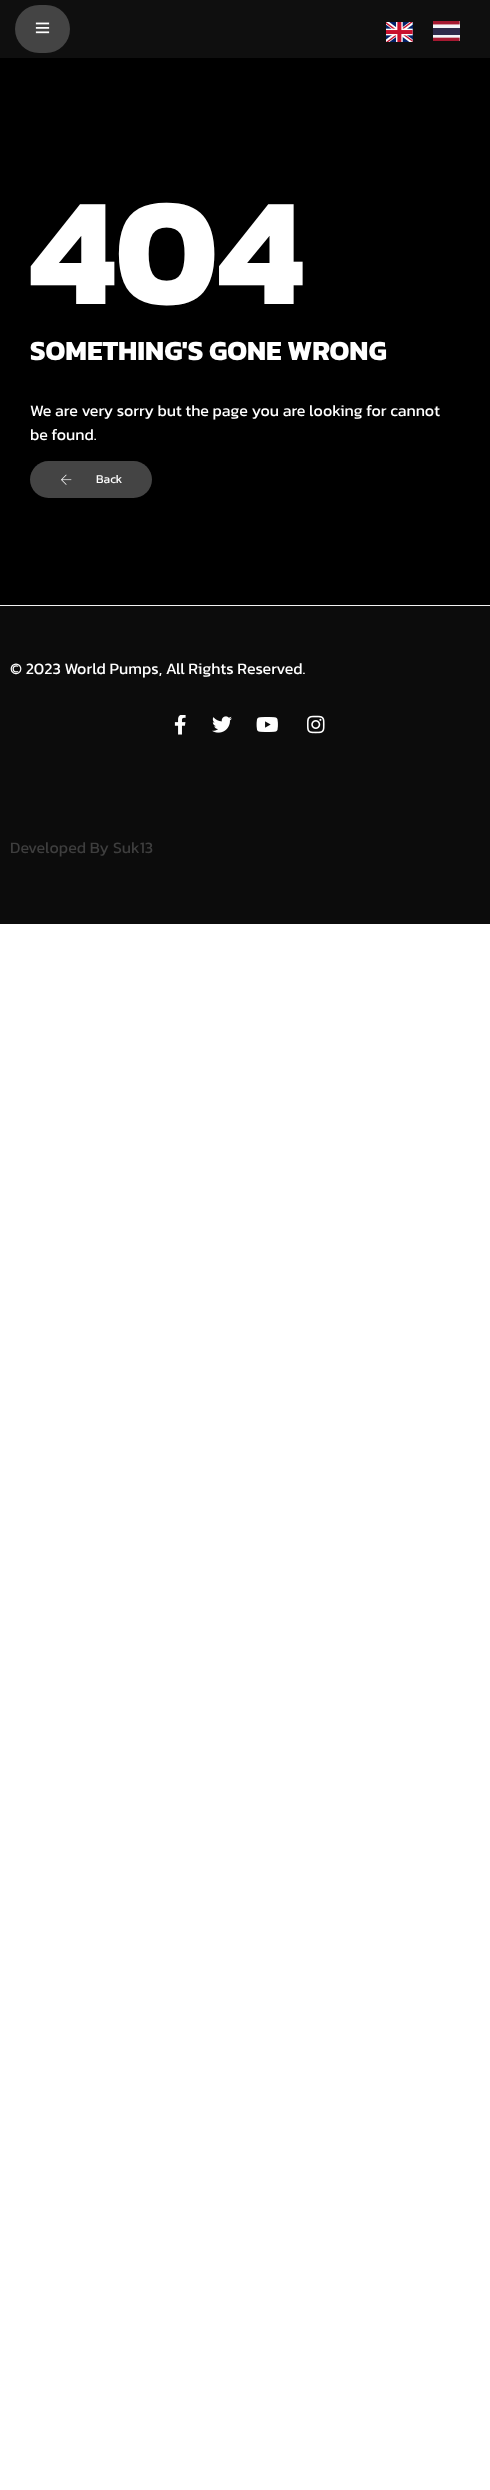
async function draw(canvas) {
  canvas.width = 490;
  canvas.height = 2490;
  const ctx = canvas.getContext('2d');
  ctx.miterLimit = 4;
  ctx.fontKerning = 'normal';
  function label(s, x, y, font, color) {
    ctx.font = font;
    ctx.fillStyle = color;
    ctx.fillText(s, x, y);
  }
  function rect(x, y, w, h, color) {
    ctx.fillStyle = color;
    ctx.fillRect(x, y, w, h);
  }
  function roundedRect(x, y, w, h, r, color) {
    ctx.fillStyle = color;
    ctx.beginPath();
    ctx.roundRect(x, y, w, h, r);
    ctx.fill();
  }
  async function image(src, x, y, w, h) {
    const img = new Image();
    img.src = src;
    await img.decode();
    ctx.drawImage(img, x, y, w, h);
  }

  rect(0, 0, 490, 2490, '#fff');
  rect(0, 0, 490, 58, '#0f0f0f');
  roundedRect(15, 5, 55, 48, 24, '#444');
  await image('assets/img1.png', 35, 22, 15, 12);
  await image('assets/img2.png', 386, 22, 27, 20);
  await image('assets/img3.png', 433, 21, 27, 20);
  rect(0, 58, 490, 547, '#000');
  rect(0, 605, 490, 1, '#f2f2f2');
  label('404', 30, 304, 'bold 155px Kanit', '#fff');
  label('SOMETHING\'S GONE WRONG', 30, 360, 'bold 28px Kanit', '#fff');
  label('We are very sorry but the page you are looking for cannot', 30, 416, '16px Kanit', '#fff');
  label('be found.', 30, 440, '16px Kanit', '#fff');
  roundedRect(30, 461, 122, 37, 18.5, '#444');
  await image('assets/img4.png', 61, 474, 11, 11);
  label('Back', 96, 483, '12px Kanit', '#fff');
  rect(0, 606, 490, 318, '#0c0c0c');
  label('© 2023 World Pumps, All Rights Reserved.', 10, 674, '16px Kanit', '#fff');
  await image('assets/img5.png', 174, 715, 12, 20);
  await image('assets/img6.png', 212, 716, 20, 17);
  await image('assets/img7.png', 256, 717, 22, 15);
  await image('assets/img8.png', 307, 715, 18, 19);
  label('Developed By', 10, 853, '16px Kanit', '#3e3e3e');
  label('Suk13', 113, 853, '16px Kanit', '#3e3e3e');
}

draw(document.querySelector('canvas'));
